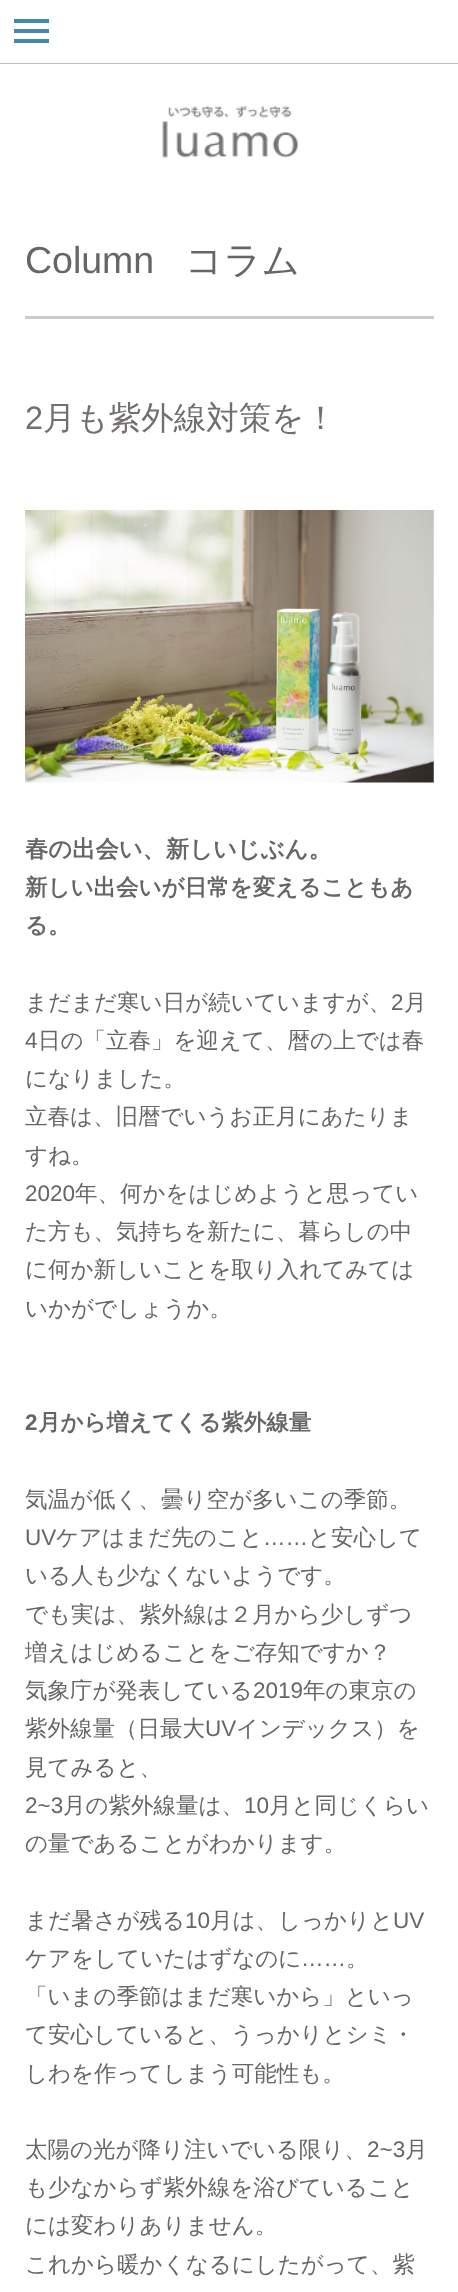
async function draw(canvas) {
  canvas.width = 458;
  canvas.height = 2292;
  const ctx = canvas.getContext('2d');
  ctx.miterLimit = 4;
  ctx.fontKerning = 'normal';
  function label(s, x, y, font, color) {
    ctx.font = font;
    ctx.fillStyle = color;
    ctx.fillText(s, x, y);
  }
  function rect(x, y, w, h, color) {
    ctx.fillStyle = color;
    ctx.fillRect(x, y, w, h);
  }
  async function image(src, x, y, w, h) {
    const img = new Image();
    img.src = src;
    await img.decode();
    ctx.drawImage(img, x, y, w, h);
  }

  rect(0, 0, 458, 2292, '#fff');
  rect(0, 63, 458, 1, '#bebebe');
  rect(14, 29, 35, 4, '#4389ad');
  rect(14, 19, 35, 4, '#4389ad');
  rect(14, 39, 35, 4, '#4389ad');
  await image('assets/img1.png', 162, 105, 137, 53);
  label('Column', 25, 273, '37.5px Liberation Sans', '#666');
  label('コラム', 185, 273, '500 37.5px WenQuanYi Zen Hei', '#666');
  rect(25, 316, 409, 3, '#ccc');
  label('2', 25, 429, '32.5px Liberation Sans', '#736f6f');
  label('月も紫外線対策を！', 43, 429, '500 32.5px WenQuanYi Zen Hei', '#736f6f');
  await image('assets/img2.png', 25, 510, 409, 273);
  label('春の出会い、新しいじぶん。', 25, 857, 'bold 23.3px WenQuanYi Zen Hei', '#666');
  label('新しい出会いが日常を変えることもあ', 25, 895, 'bold 22.5px WenQuanYi Zen Hei', '#666');
  label('る。', 25, 933, 'bold 22.5px WenQuanYi Zen Hei', '#666');
  label('まだまだ寒い日が続いていますが、', 25, 1010, '500 22.5px WenQuanYi Zen Hei', '#666');
  label('2', 391, 1010, '22.5px Liberation Sans', '#666');
  label('月', 404, 1010, '500 22.5px WenQuanYi Zen Hei', '#666');
  label('4', 25, 1048, '22.5px Liberation Sans', '#666');
  label('日の「立春」を迎えて、暦の上では春', 38, 1048, '500 22.5px WenQuanYi Zen Hei', '#666');
  label('になりました。', 25, 1086, '500 22.5px WenQuanYi Zen Hei', '#666');
  label('立春は、旧暦でいうお正月にあたりま', 25, 1124, '500 22.5px WenQuanYi Zen Hei', '#666');
  label('すね。', 25, 1163, '500 22.5px WenQuanYi Zen Hei', '#666');
  label('2020', 25, 1201, '22.5px Liberation Sans', '#666');
  label('年、何かをはじめようと思ってい', 75, 1201, '500 22.5px WenQuanYi Zen Hei', '#666');
  label('た方も、気持ちを新たに、暮らしの中', 25, 1239, '500 22.5px WenQuanYi Zen Hei', '#666');
  label('に何か新しいことを取り入れてみては', 25, 1277, '500 22.5px WenQuanYi Zen Hei', '#666');
  label('いかがでしょうか。', 25, 1316, '500 22.5px WenQuanYi Zen Hei', '#666');
  label('2', 25, 1430, 'bold 22.5px Liberation Sans', '#666');
  label('月から増えてくる紫外線量', 38, 1430, 'bold 22.5px WenQuanYi Zen Hei', '#666');
  label('気温が低く、曇り空が多いこの季節。', 25, 1507, '500 22.5px WenQuanYi Zen Hei', '#666');
  label('UV', 25, 1545, '22.5px Liberation Sans', '#666');
  label('ケアはまだ先のこと', 56, 1545, '500 22.5px WenQuanYi Zen Hei', '#666');
  label('……', 263, 1545, '22.5px Liberation Sans', '#666');
  label('と安心して', 308, 1545, '500 22.5px WenQuanYi Zen Hei', '#666');
  label('いる人も少なくないようです。', 25, 1583, '500 22.5px WenQuanYi Zen Hei', '#666');
  label('でも実は、紫外線は２月から少しずつ', 25, 1622, '500 22.5px WenQuanYi Zen Hei', '#666');
  label('増えはじめることをご存知ですか？', 25, 1660, '500 22.5px WenQuanYi Zen Hei', '#666');
  label('気象庁が発表している', 25, 1698, '500 22.5px WenQuanYi Zen Hei', '#666');
  label('2019', 253, 1698, '22.5px Liberation Sans', '#666');
  label('年の東京の', 303, 1698, '500 22.5px WenQuanYi Zen Hei', '#666');
  label('紫外線量（日最大', 25, 1736, '500 22.5px WenQuanYi Zen Hei', '#666');
  label('UV', 205, 1736, '22.5px Liberation Sans', '#666');
  label('インデックス）を', 236, 1736, '500 22.5px WenQuanYi Zen Hei', '#666');
  label('見てみると、', 25, 1775, '500 22.5px WenQuanYi Zen Hei', '#666');
  label('2~3', 25, 1813, '22.5px Liberation Sans', '#666');
  label('月の紫外線量は、', 63, 1813, '500 22.5px WenQuanYi Zen Hei', '#666');
  label('10', 244, 1813, '22.5px Liberation Sans', '#666');
  label('月と同じくらい', 269, 1813, '500 22.5px WenQuanYi Zen Hei', '#666');
  label('の量であることがわかります。', 25, 1851, '500 22.5px WenQuanYi Zen Hei', '#666');
  label('まだ暑さが残る', 25, 1928, '500 22.5px WenQuanYi Zen Hei', '#666');
  label('10', 185, 1928, '22.5px Liberation Sans', '#666');
  label('月は、しっかりと', 210, 1928, '500 22.5px WenQuanYi Zen Hei', '#666');
  label('UV', 393, 1928, '22.5px Liberation Sans', '#666');
  label('ケアをしていたはずなのに', 25, 1966, '500 22.5px WenQuanYi Zen Hei', '#666');
  label('……', 301, 1966, '22.5px Liberation Sans', '#666');
  label('。', 346, 1966, '500 22.5px WenQuanYi Zen Hei', '#666');
  label('「いまの季節はまだ寒いから」といっ', 25, 2004, '500 22.5px WenQuanYi Zen Hei', '#666');
  label('て安心していると、うっかりとシミ・', 25, 2042, '500 22.5px WenQuanYi Zen Hei', '#666');
  label('しわを作ってしまう可能性も。', 25, 2081, '500 22.5px WenQuanYi Zen Hei', '#666');
  label('太陽の光が降り注いでいる限り、', 25, 2157, '500 22.5px WenQuanYi Zen Hei', '#666');
  label('2~3', 367, 2157, '22.5px Liberation Sans', '#666');
  label('月', 405, 2157, '500 22.5px WenQuanYi Zen Hei', '#666');
  label('も少なからず紫外線を浴びていること', 25, 2195, '500 22.5px WenQuanYi Zen Hei', '#666');
  label('には変わりありません。', 25, 2233, '500 22.5px WenQuanYi Zen Hei', '#666');
  label('これから暖かくなるにしたがって、紫', 25, 2272, '500 22.5px WenQuanYi Zen Hei', '#666');
}

draw(document.querySelector('canvas'));
